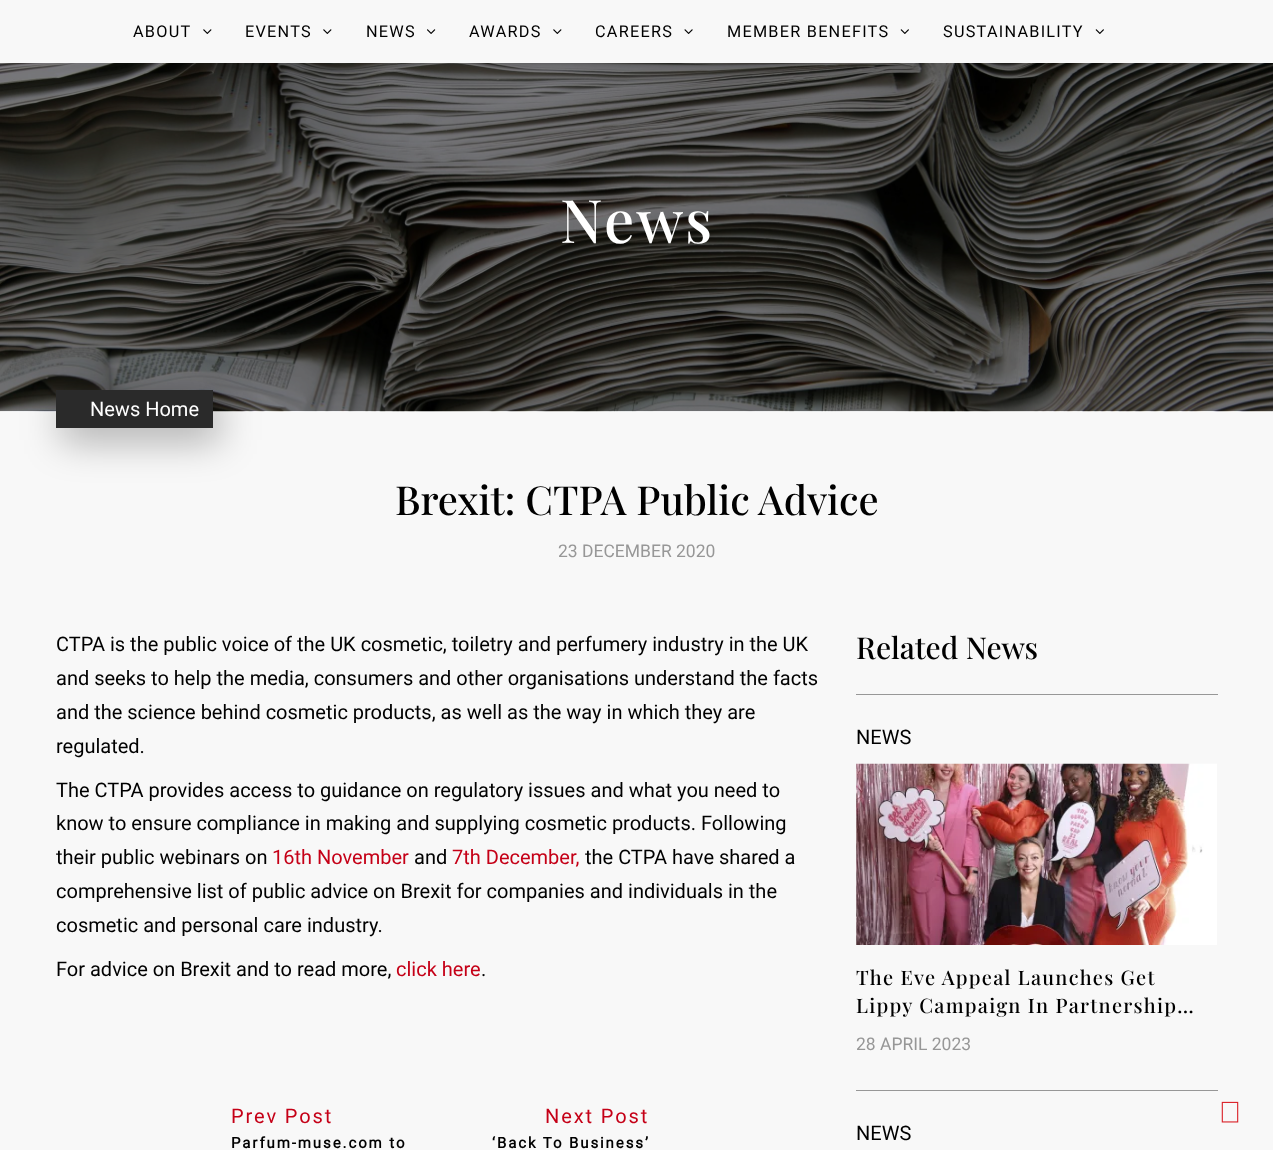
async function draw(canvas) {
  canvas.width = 1273;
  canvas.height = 1150;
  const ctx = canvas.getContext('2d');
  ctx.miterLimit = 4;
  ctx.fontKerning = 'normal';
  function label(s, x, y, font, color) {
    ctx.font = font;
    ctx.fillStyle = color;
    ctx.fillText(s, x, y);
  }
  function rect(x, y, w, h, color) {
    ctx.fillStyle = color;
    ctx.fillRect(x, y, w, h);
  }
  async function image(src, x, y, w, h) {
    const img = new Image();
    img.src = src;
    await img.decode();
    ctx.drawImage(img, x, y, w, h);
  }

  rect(0, 0, 1273, 1150, '#f8f8f8');
  ctx.letterSpacing = '1.25px';
  label('ABOUT', 133, 37, '16.25px Roboto', '#000');
  await image('assets/img1.png', 203, 29, 9, 5);
  label('EVENTS', 245, 37, '16.25px Roboto', '#000');
  await image('assets/img1.png', 323, 29, 9, 5);
  label('NEWS', 366, 37, '16.25px Roboto', '#000');
  await image('assets/img2.png', 427, 29, 9, 5);
  label('AWARDS', 469, 37, '16.25px Roboto', '#000');
  await image('assets/img1.png', 553, 29, 9, 5);
  label('CAREERS', 595, 37, '16.25px Roboto', '#000');
  await image('assets/img3.png', 684, 29, 9, 5);
  label('MEMBER BENEFITS', 727, 37, '16.25px Roboto', '#000');
  await image('assets/img4.png', 900, 29, 9, 5);
  label('SUSTAINABILITY', 943, 37, '16.25px Roboto', '#000');
  await image('assets/img4.png', 1095, 29, 9, 5);
  await image('assets/img5.png', 0, 63, 1273, 349);
  ctx.letterSpacing = '2.5px';
  label('News', 560, 243, '500 60px Playfair Display', '#fff');
  ctx.fillStyle = '#0000004d';
  ctx.filter = 'blur(19px)';
  ctx.beginPath();
  ctx.rect(61, 401, 159, 40);
  ctx.fill();
  ctx.filter = 'none';
  rect(56, 390, 157, 38, '#2a2a2a');
  ctx.letterSpacing = '0px';
  label('News Home', 90, 416, '20px Roboto', '#fff');
  label('Brexit: CTPA Public Advice', 395, 515, '500 40px Playfair Display', '#000');
  label('23 DECEMBER 2020', 558, 557, '17.5px Roboto', '#979797');
  label('CTPA is the public voice of the UK cosmetic, toiletry and perfumery industry in the UK', 56, 651, '20px Roboto', '#000');
  label('and seeks to help the media, consumers and other organisations understand the facts', 56, 685, '20px Roboto', '#000');
  label('and the science behind cosmetic products, as well as the way in which they are', 56, 719, '20px Roboto', '#000');
  label('regulated.', 56, 753, '20px Roboto', '#000');
  label('The CTPA provides access to guidance on regulatory issues and what you need to', 56, 797, '20px Roboto', '#000');
  label('know to ensure compliance in making and supplying cosmetic products. Following', 56, 830, '20px Roboto', '#000');
  label('their public webinars on', 56, 864, '20px Roboto', '#000');
  label('16th November', 272, 864, '20px Roboto', '#c50017');
  label('and', 414, 864, '20px Roboto', '#000');
  label('7th December,', 452, 864, '20px Roboto', '#c50017');
  label('the CTPA have shared a', 585, 864, '20px Roboto', '#000');
  label('comprehensive list of public advice on Brexit for companies and individuals in the', 56, 898, '20px Roboto', '#000');
  label('cosmetic and personal care industry.', 56, 932, '20px Roboto', '#000');
  label('For advice on Brexit and to read more,', 56, 976, '20px Roboto', '#000');
  label('click here', 396, 976, '20px Roboto', '#c50017');
  label('.', 481, 976, '20px Roboto', '#000');
  ctx.letterSpacing = '1.9px';
  label('Prev Post', 231, 1123, '20px Roboto', '#c50017');
  label('Parfum-muse.com to', 231, 1148, 'bold 15px Roboto', '#000');
  label('Next Post', 545, 1123, '20px Roboto', '#c50017');
  label('‘Back To Business’', 492, 1148, 'bold 15px Roboto', '#000');
  ctx.letterSpacing = '0px';
  label('Related News', 856, 659, '500 30px Playfair Display', '#000');
  rect(856, 694, 362, 1, '#979797');
  label('NEWS', 856, 744, '20px Roboto', '#000');
  await image('assets/img6.png', 856, 763, 361, 182);
  ctx.letterSpacing = '1.25px';
  label('The Eve Appeal Launches Get', 856, 985, '500 20px Playfair Display', '#000');
  label('Lippy Campaign In Partnership…', 856, 1013, '500 20px Playfair Display', '#000');
  ctx.letterSpacing = '0px';
  label('28 APRIL 2023', 856, 1050, '17.5px Roboto', '#979797');
  rect(856, 1090, 362, 1, '#979797');
  label('NEWS', 856, 1140, '20px Roboto', '#000');
  await image('assets/img7.png', 1221, 1101, 18, 22);
}

draw(document.querySelector('canvas'));
